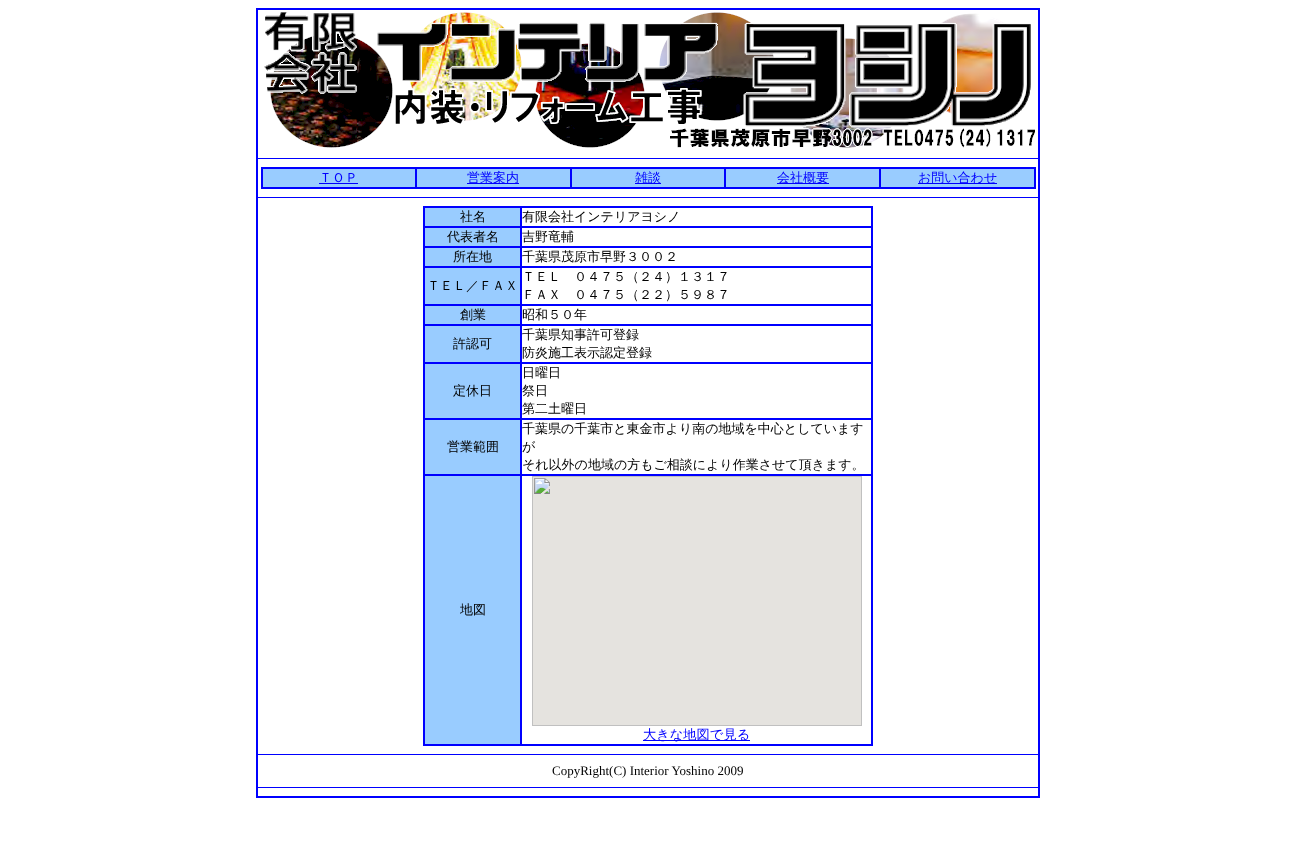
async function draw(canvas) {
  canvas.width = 1296;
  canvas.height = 841;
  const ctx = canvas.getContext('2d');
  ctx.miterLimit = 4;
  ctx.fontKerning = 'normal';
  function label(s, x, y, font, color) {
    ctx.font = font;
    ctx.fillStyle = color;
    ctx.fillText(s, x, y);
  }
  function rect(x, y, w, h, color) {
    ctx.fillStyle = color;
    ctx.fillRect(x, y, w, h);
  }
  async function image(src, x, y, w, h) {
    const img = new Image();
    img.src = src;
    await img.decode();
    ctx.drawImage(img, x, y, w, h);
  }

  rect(0, 0, 1296, 841, '#fff');
  ctx.strokeStyle = '#00f';
  ctx.strokeRect(256.5, 8.5, 783, 789);
  ctx.strokeRect(257.5, 9.5, 781, 787);
  await image('assets/img1.png', 264, 12, 771, 136);
  rect(258, 158, 780, 1, '#00f');
  rect(263, 169, 771, 18, '#9cf');
  ctx.strokeRect(261.5, 167.5, 774, 21);
  ctx.strokeRect(262.5, 168.5, 153, 19);
  label('ＴＯＰ', 319, 182, '500 13px WenQuanYi Zen Hei', '#00f');
  rect(319, 183, 39, 1, '#00f');
  ctx.strokeRect(416.5, 168.5, 154, 19);
  rect(467, 183, 52, 1, '#00f');
  label('営業案内', 467, 182, '500 13px WenQuanYi Zen Hei', '#00f');
  ctx.strokeRect(571.5, 168.5, 153, 19);
  rect(635, 183, 26, 1, '#00f');
  label('雑談', 635, 182, '500 13px WenQuanYi Zen Hei', '#00f');
  ctx.strokeRect(725.5, 168.5, 154, 19);
  rect(777, 183, 52, 1, '#00f');
  label('会社概要', 777, 182, '500 13px WenQuanYi Zen Hei', '#00f');
  ctx.strokeRect(880.5, 168.5, 154, 19);
  rect(918, 183, 79, 1, '#00f');
  label('お問い合わせ', 918, 182, '500 13px WenQuanYi Zen Hei', '#00f');
  rect(258, 197, 780, 1, '#00f');
  rect(423, 206, 450, 540, '#00f');
  rect(425, 208, 95, 18, '#9cf');
  label('社名', 460, 221, '500 13px WenQuanYi Zen Hei', '#000');
  rect(522, 208, 349, 18, '#fff');
  label('有限会社インテリアヨシノ', 522, 221, '500 13px WenQuanYi Zen Hei', '#000');
  rect(425, 228, 95, 18, '#9cf');
  label('代表者名', 447, 241, '500 13px WenQuanYi Zen Hei', '#000');
  rect(522, 228, 349, 18, '#fff');
  label('吉野竜輔', 522, 241, '500 13px WenQuanYi Zen Hei', '#000');
  rect(425, 248, 95, 18, '#9cf');
  label('所在地', 453, 261, '500 13px WenQuanYi Zen Hei', '#000');
  rect(522, 248, 349, 18, '#fff');
  label('千葉県茂原市早野３００２', 522, 261, '500 13px WenQuanYi Zen Hei', '#000');
  rect(425, 268, 95, 36, '#9cf');
  label('ＴＥＬ／ＦＡＸ', 427, 290, '500 13px WenQuanYi Zen Hei', '#000');
  rect(522, 268, 349, 36, '#fff');
  label('ＴＥＬ　０４７５（２４）１３１７', 522, 281, '500 13px WenQuanYi Zen Hei', '#000');
  label('ＦＡＸ　０４７５（２２）５９８７', 522, 299, '500 13px WenQuanYi Zen Hei', '#000');
  rect(425, 306, 95, 18, '#9cf');
  label('創業', 460, 319, '500 13px WenQuanYi Zen Hei', '#000');
  rect(522, 306, 349, 18, '#fff');
  label('昭和５０年', 522, 319, '500 13px WenQuanYi Zen Hei', '#000');
  rect(425, 326, 95, 36, '#9cf');
  label('許認可', 453, 348, '500 13px WenQuanYi Zen Hei', '#000');
  rect(522, 326, 349, 36, '#fff');
  label('千葉県知事許可登録', 522, 339, '500 13px WenQuanYi Zen Hei', '#000');
  label('防炎施工表示認定登録', 522, 357, '500 13px WenQuanYi Zen Hei', '#000');
  rect(425, 364, 95, 54, '#9cf');
  label('定休日', 453, 395, '500 13px WenQuanYi Zen Hei', '#000');
  rect(522, 364, 349, 54, '#fff');
  label('日曜日', 522, 377, '500 13px WenQuanYi Zen Hei', '#000');
  label('祭日', 522, 395, '500 13px WenQuanYi Zen Hei', '#000');
  label('第二土曜日', 522, 413, '500 13px WenQuanYi Zen Hei', '#000');
  rect(425, 420, 95, 54, '#9cf');
  label('営業範囲', 447, 451, '500 13px WenQuanYi Zen Hei', '#000');
  rect(522, 420, 349, 54, '#fff');
  label('千葉県の千葉市と東金市より南の地域を中心としています', 522, 433, '500 13px WenQuanYi Zen Hei', '#000');
  label('が', 522, 451, '500 13px WenQuanYi Zen Hei', '#000');
  label('それ以外の地域の方もご相談により作業させて頂きます。', 522, 469, '500 13px WenQuanYi Zen Hei', '#000');
  rect(425, 476, 95, 268, '#9cf');
  label('地図', 460, 614, '500 13px WenQuanYi Zen Hei', '#000');
  rect(522, 476, 349, 268, '#fff');
  await image('assets/img2.png', 532, 476, 330, 250);
  rect(643, 740, 107, 1, '#00f');
  label('大きな地図で見る', 643, 739, '500 13.25px WenQuanYi Zen Hei', '#00f');
  rect(258, 754, 780, 1, '#00f');
  label('CopyRight(C) Interior Yoshino 2009', 552, 775, '13px Liberation Serif', '#000');
  rect(258, 787, 780, 1, '#00f');
}

draw(document.querySelector('canvas'));
